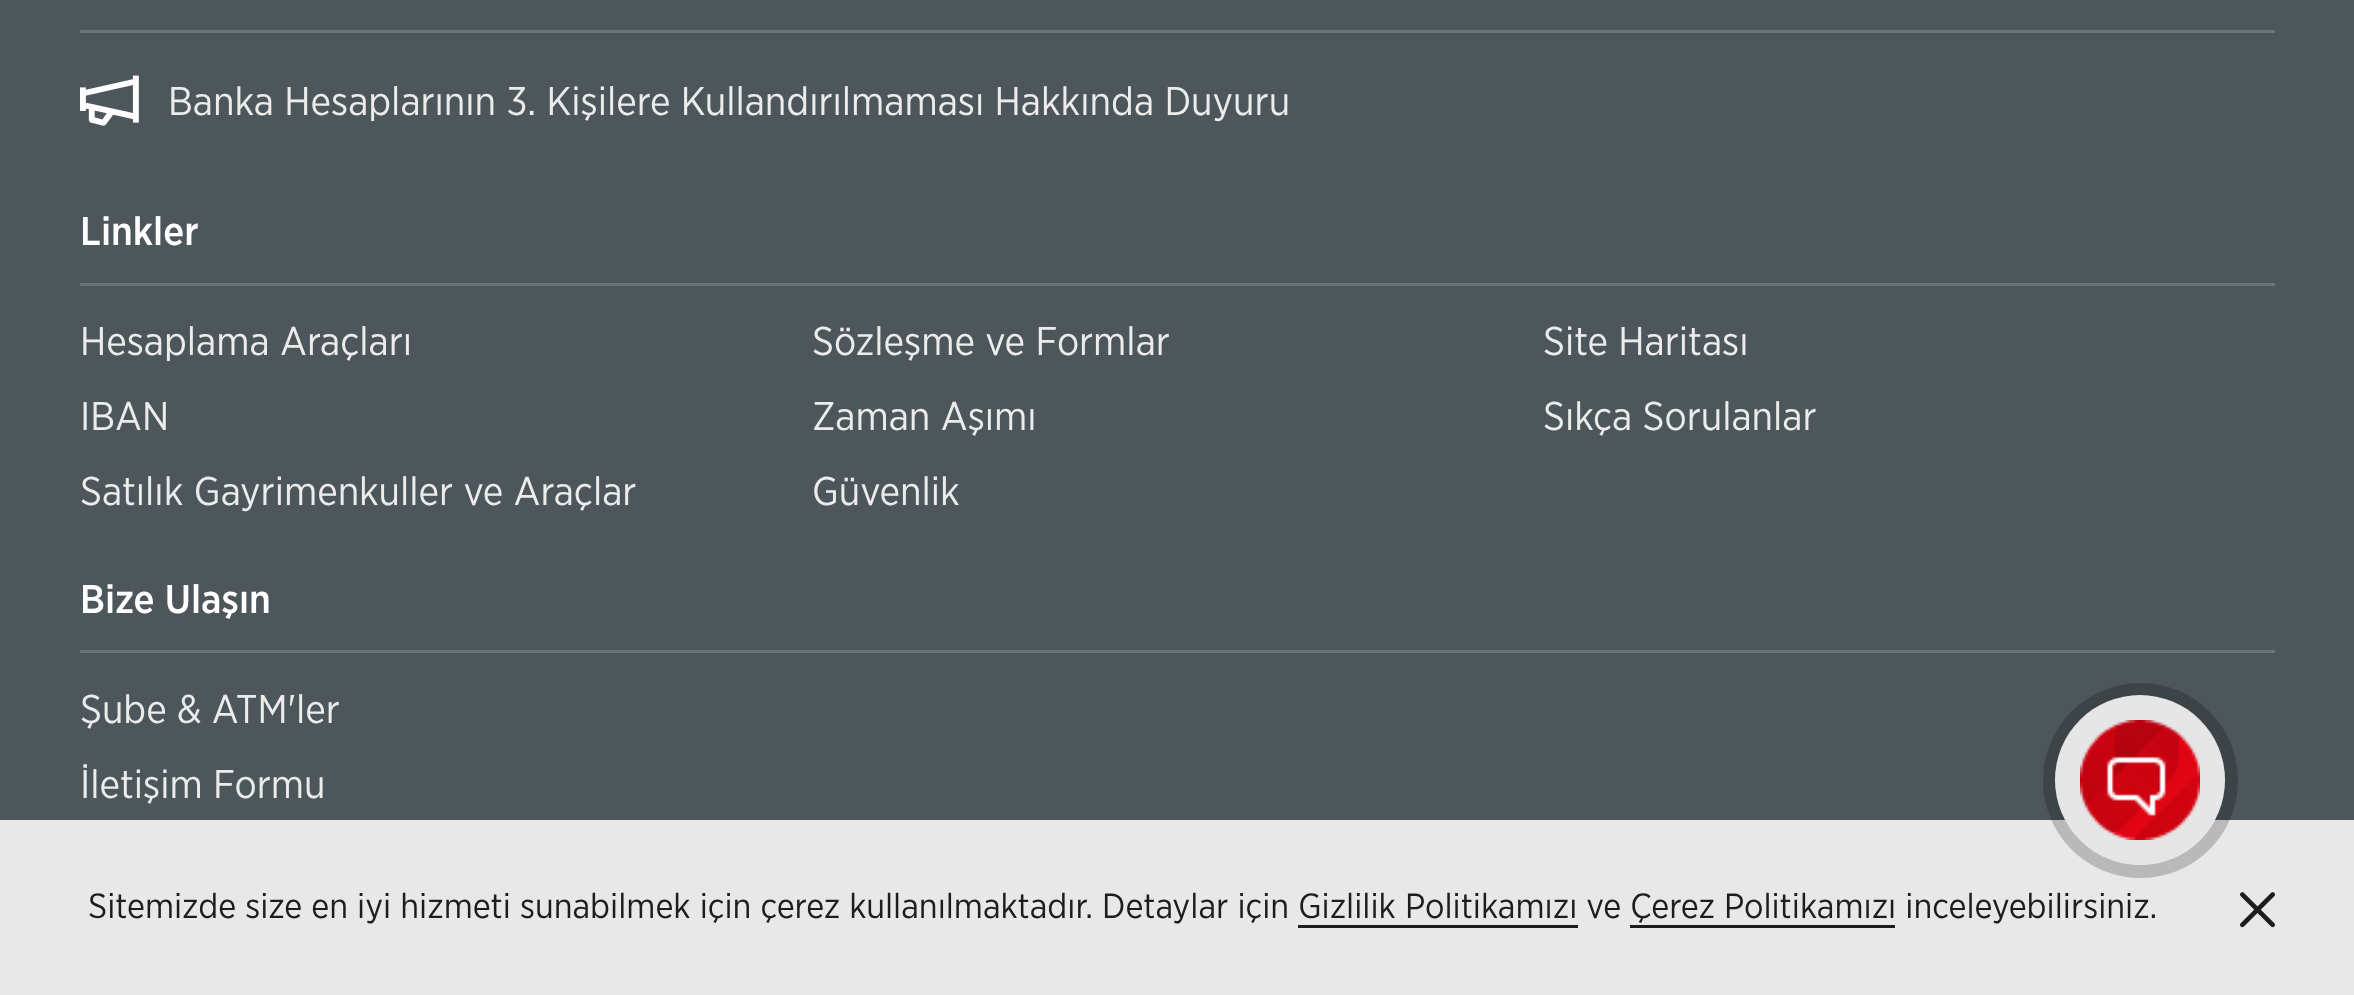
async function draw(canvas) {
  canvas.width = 2354;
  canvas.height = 995;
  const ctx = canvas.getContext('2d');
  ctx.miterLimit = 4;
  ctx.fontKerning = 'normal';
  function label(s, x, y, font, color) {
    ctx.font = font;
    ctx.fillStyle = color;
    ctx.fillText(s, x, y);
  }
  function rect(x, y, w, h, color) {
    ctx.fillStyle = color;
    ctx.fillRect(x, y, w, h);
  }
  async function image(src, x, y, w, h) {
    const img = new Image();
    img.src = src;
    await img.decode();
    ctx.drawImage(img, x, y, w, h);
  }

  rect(0, 0, 2354, 995, '#4c565b');
  rect(80, 30, 2195, 3, '#6a7378');
  await image('assets/img1.png', 80, 75, 59, 51);
  label('Banka Hesaplarının 3. Kişilere Kullandırılmaması Hakkında Duyuru', 168, 115, '40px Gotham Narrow', '#ececec');
  rect(80, 283, 2195, 3, '#6a7378');
  label('Linkler', 80, 245, '500 40px Gotham Narrow', '#fff');
  label('Hesaplama Araçları', 80, 355, '40px Gotham Narrow', '#ececec');
  label('Sözleşme ve Formlar', 812, 355, '40px Gotham Narrow', '#ececec');
  label('Site Haritası', 1543, 355, '40px Gotham Narrow', '#ececec');
  label('IBAN', 80, 430, '40px Gotham Narrow', '#ececec');
  label('Zaman Aşımı', 812, 430, '40px Gotham Narrow', '#ececec');
  label('Sıkça Sorulanlar', 1543, 430, '40px Gotham Narrow', '#ececec');
  label('Satılık Gayrimenkuller ve Araçlar', 80, 505, '40px Gotham Narrow', '#ececec');
  label('Güvenlik', 812, 505, '40px Gotham Narrow', '#ececec');
  rect(80, 650, 2195, 3, '#6a7378');
  label('Bize Ulaşın', 80, 613, '500 40px Gotham Narrow', '#fff');
  label('Şube & ATM\'ler', 80, 723, '40px Gotham Narrow', '#ececec');
  label('İletişim Formu', 80, 798, '40px Gotham Narrow', '#ececec');
  rect(0, 820, 2354, 175, '#e8e8e8');
  ctx.beginPath();
  ctx.arc(2140.5, 780.5, 91, 0, 2 * Math.PI);
  ctx.strokeStyle = '#00000033';
  ctx.lineWidth = 13;
  ctx.stroke();
  ctx.fillStyle = '#e6e6e6';
  ctx.beginPath();
  ctx.arc(2140, 780, 85, 0, 2 * Math.PI);
  ctx.fill();
  await image('assets/img2.png', 2080, 720, 120, 120);
  label('Sitemizde size en iyi hizmeti sunabilmek için çerez kullanılmaktadır. Detaylar için Gizlilik Politikamızı ve Çerez Politikamızı inceleyebilirsiniz.', 88, 918, '35px Gotham Narrow', '#1d1d1b');
  rect(1298, 925, 280, 3, '#1d1d1b');
  rect(1630, 925, 265, 3, '#1d1d1b');
  await image('assets/img3.png', 2240, 892, 35, 36);
}

draw(document.querySelector('canvas'));
